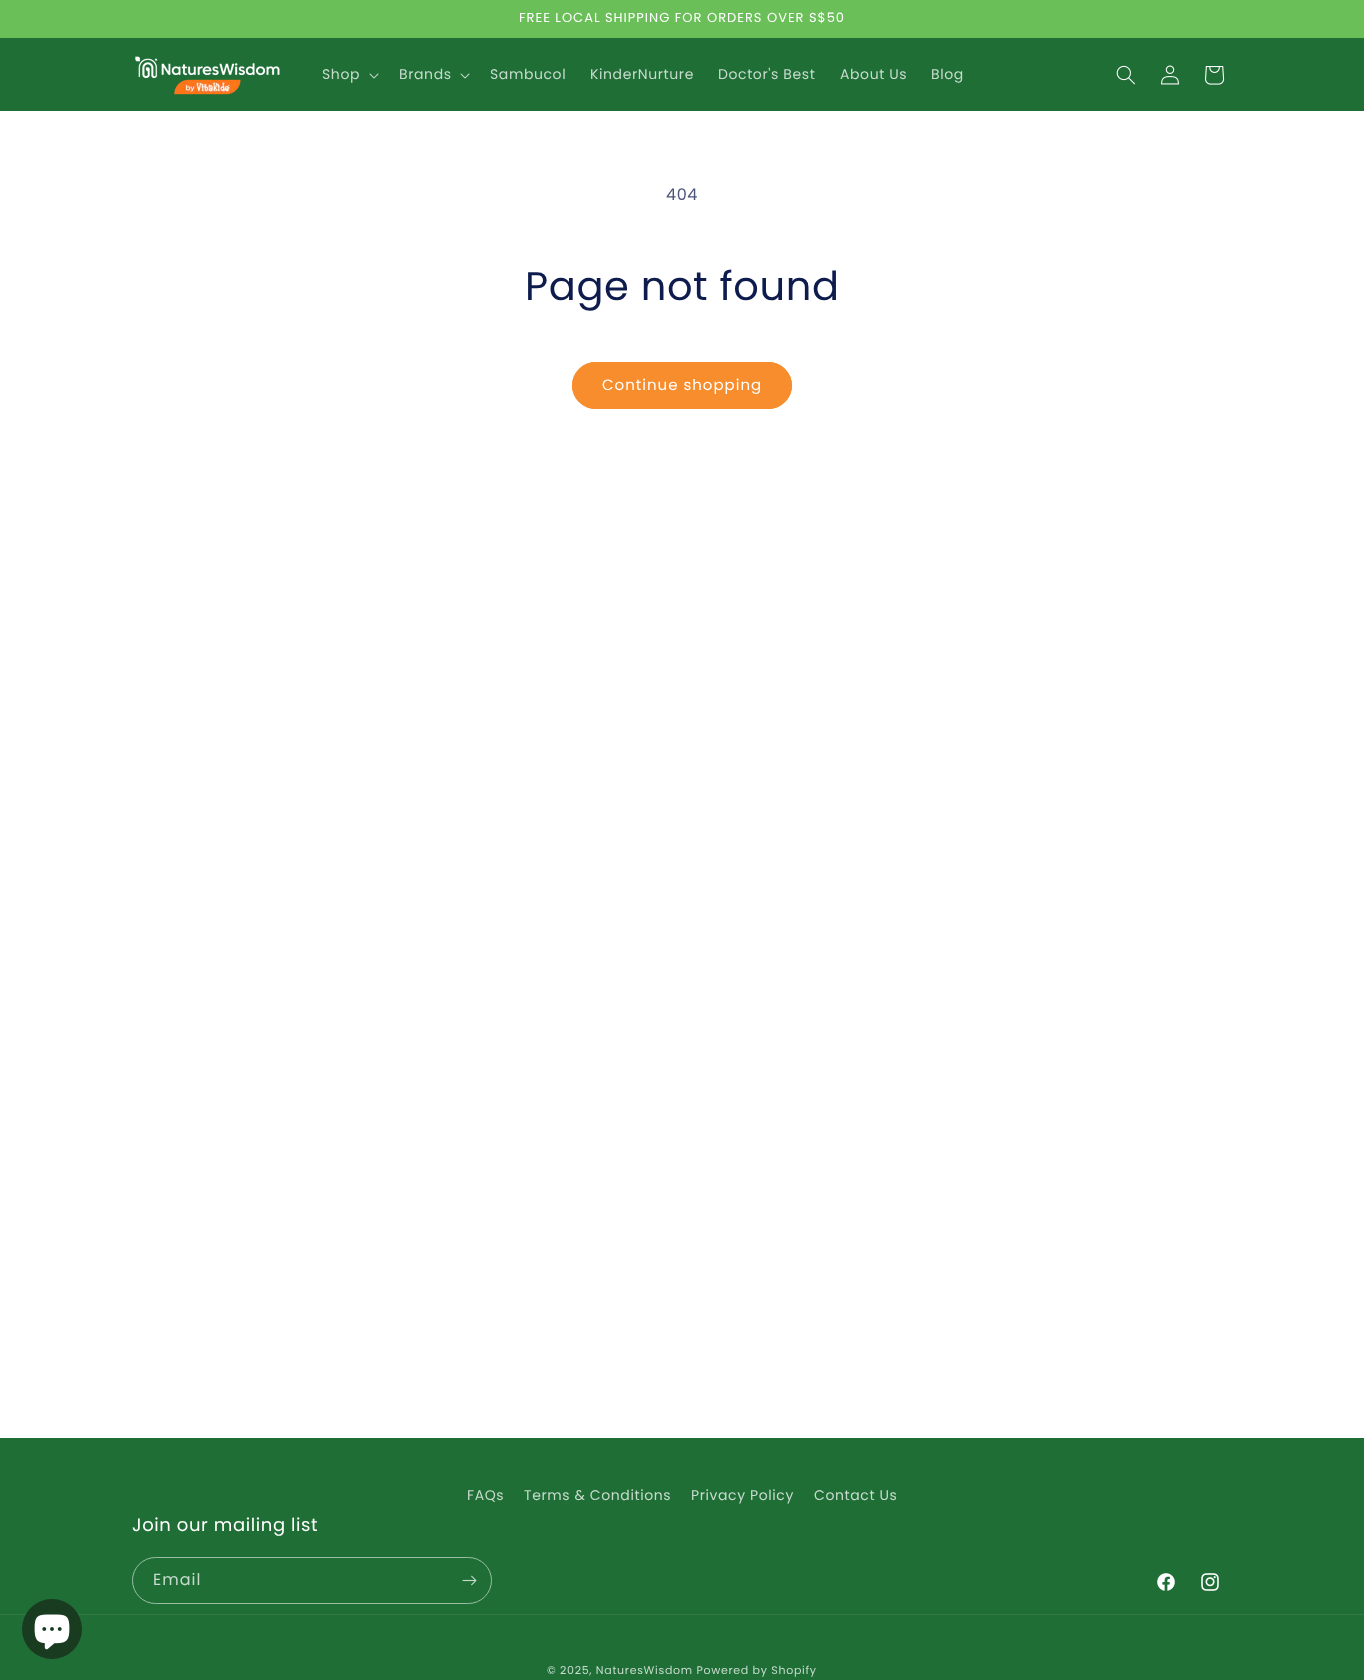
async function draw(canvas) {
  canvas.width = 1364;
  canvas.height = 1680;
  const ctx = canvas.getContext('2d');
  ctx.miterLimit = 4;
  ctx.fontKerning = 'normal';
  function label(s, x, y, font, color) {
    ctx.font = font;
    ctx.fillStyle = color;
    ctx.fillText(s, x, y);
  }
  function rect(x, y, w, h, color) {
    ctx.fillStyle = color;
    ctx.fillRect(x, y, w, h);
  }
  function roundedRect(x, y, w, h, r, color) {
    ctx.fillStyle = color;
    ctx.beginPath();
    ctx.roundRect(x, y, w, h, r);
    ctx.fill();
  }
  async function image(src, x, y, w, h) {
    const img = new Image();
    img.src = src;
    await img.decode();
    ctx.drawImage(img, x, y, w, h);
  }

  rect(0, 0, 1364, 1680, '#fff');
  rect(0, 0, 1364, 38, '#6bbf59');
  ctx.letterSpacing = '1px';
  label('FREE LOCAL SHIPPING FOR ORDERS OVER S$50', 519, 22, '13px Poppins', '#fff');
  rect(0, 38, 1364, 73, '#1f6e36');
  await image('assets/img1.png', 135, 56, 145, 39);
  ctx.letterSpacing = '0.6px';
  label('Shop', 322, 79, '14px Poppins', '#c7dbcd');
  await image('assets/img2.png', 369, 73, 10, 6);
  label('Brands', 399, 79, '14px Poppins', '#c7dbcd');
  await image('assets/img2.png', 460, 73, 10, 6);
  label('Sambucol', 490, 79, '14px Poppins', '#c7dbcd');
  label('KinderNurture', 590, 79, '14px Poppins', '#c7dbcd');
  label('Doctor\'s Best', 718, 79, '14px Poppins', '#c7dbcd');
  label('About Us', 840, 79, '14px Poppins', '#c7dbcd');
  label('Blog', 931, 79, '14px Poppins', '#c7dbcd');
  await image('assets/img3.png', 1116, 65, 19, 20);
  await image('assets/img4.png', 1161, 65, 18, 20);
  await image('assets/img5.png', 1205, 66, 20, 19);
  label('404', 666, 200, '16px Poppins', '#4a547a');
  label('Page not found', 525, 300, '40px Poppins', '#0e1b4d');
  roundedRect(572, 362, 220, 47, 23.5, '#f78d2c');
  ctx.beginPath();
  ctx.roundRect(572.5, 362.5, 219, 46, 23);
  ctx.strokeStyle = '#f78d2c';
  ctx.stroke();
  ctx.letterSpacing = '1px';
  label('Continue shopping', 602, 390, '15px Poppins', '#fff');
  rect(0, 1438, 1364, 242, '#1f6e36');
  rect(0, 1614, 1364, 1, '#317a46');
  ctx.fillStyle = '#193b1f';
  ctx.beginPath();
  ctx.arc(52, 1629, 30, 0, 2 * Math.PI);
  ctx.fill();
  await image('assets/img6.png', 34, 1614, 36, 36);
  ctx.letterSpacing = '0.6px';
  label('FAQs', 467, 1500, '14px Poppins', '#c7dbcd');
  label('Terms & Conditions', 524, 1500, '14px Poppins', '#c7dbcd');
  label('Privacy Policy', 691, 1500, '14px Poppins', '#c7dbcd');
  label('Contact Us', 814, 1500, '14px Poppins', '#c7dbcd');
  label('Join our mailing list', 132, 1531, '18px Poppins', '#fff');
  ctx.beginPath();
  ctx.roundRect(132.5, 1557.5, 359, 46, 23);
  ctx.strokeStyle = '#9abea5';
  ctx.stroke();
  ctx.letterSpacing = '1px';
  label('Email', 153, 1585, '16px Poppins', '#c7dbcd');
  await image('assets/img7.png', 462, 1575, 15, 11);
  await image('assets/img8.png', 1157, 1573, 18, 18);
  await image('assets/img9.png', 1201, 1573, 18, 18);
  ctx.letterSpacing = '0.7px';
  label('© 2025, NaturesWisdom Powered by Shopify', 547, 1674, '11px Poppins', '#c7dbcd');
}

draw(document.querySelector('canvas'));
